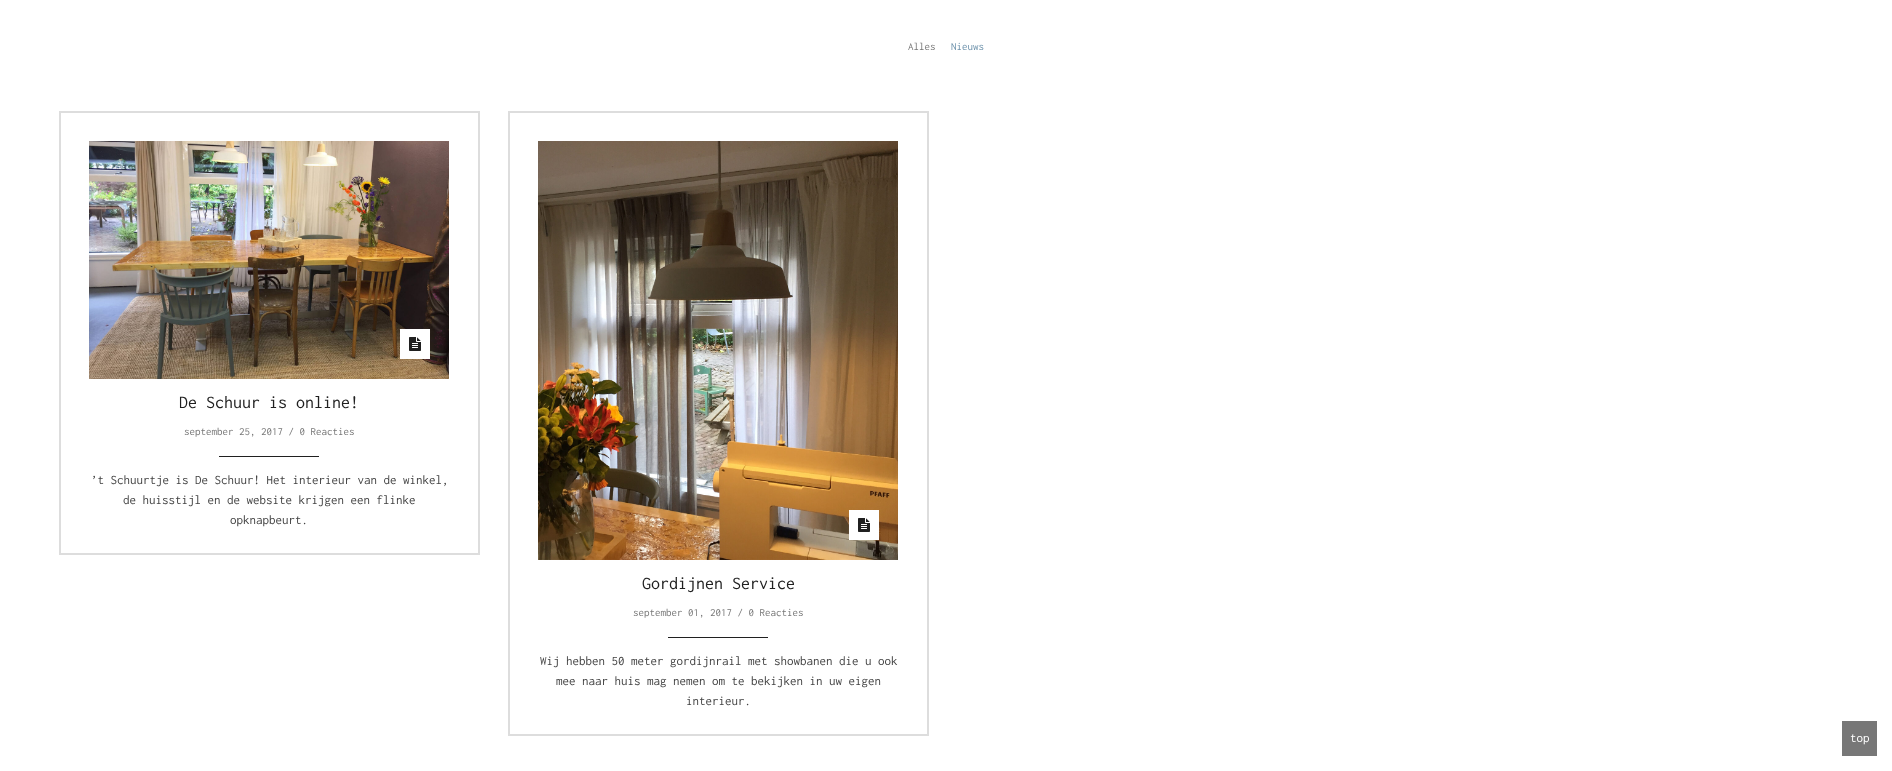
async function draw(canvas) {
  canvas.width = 1892;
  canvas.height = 771;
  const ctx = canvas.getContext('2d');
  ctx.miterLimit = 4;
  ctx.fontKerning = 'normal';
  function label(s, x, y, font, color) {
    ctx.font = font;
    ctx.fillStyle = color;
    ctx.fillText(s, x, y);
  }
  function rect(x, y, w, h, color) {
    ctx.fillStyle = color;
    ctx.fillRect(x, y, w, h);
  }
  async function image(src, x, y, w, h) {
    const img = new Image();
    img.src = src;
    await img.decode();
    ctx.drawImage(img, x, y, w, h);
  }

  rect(0, 0, 1892, 771, '#fff');
  label('Alles', 908, 50, '11px Inconsolata', '#777');
  label('Nieuws', 951, 50, '11px Inconsolata', '#6c91ab');
  ctx.strokeStyle = '#ddd';
  ctx.lineWidth = 2;
  ctx.strokeRect(60, 112, 419, 442);
  await image('assets/img1.png', 89, 141, 360, 238);
  rect(400, 329, 30, 30, '#fff');
  await image('assets/img2.png', 409, 337, 12, 14);
  label('De Schuur is online!', 179, 408, '18px Inconsolata', '#202020');
  label('september 25, 2017 / 0 Reacties', 184, 435, '11px Inconsolata', '#777');
  rect(219, 456, 100, 1, '#202020');
  label('’t Schuurtje is De Schuur! Het interieur van de winkel,', 91, 484, '13px Inconsolata', '#434343');
  label('de huisstijl en de website krijgen een flinke', 123, 504, '13px Inconsolata', '#434343');
  label('opknapbeurt.', 230, 524, '13px Inconsolata', '#434343');
  ctx.strokeRect(509, 112, 419, 623);
  await image('assets/img3.png', 538, 141, 360, 419);
  rect(849, 510, 30, 30, '#fff');
  await image('assets/img2.png', 858, 518, 12, 14);
  label('Gordijnen Service', 642, 589, '18px Inconsolata', '#202020');
  label('september 01, 2017 / 0 Reacties', 633, 616, '11px Inconsolata', '#777');
  rect(668, 637, 100, 1, '#202020');
  label('Wij hebben 50 meter gordijnrail met showbanen die u ook', 540, 665, '13px Inconsolata', '#434343');
  label('mee naar huis mag nemen om te bekijken in uw eigen', 556, 685, '13px Inconsolata', '#434343');
  label('interieur.', 686, 705, '13px Inconsolata', '#434343');
  rect(1842, 721, 35, 35, '#777');
  label('top', 1850, 742, '13px Inconsolata', '#fff');
}

draw(document.querySelector('canvas'));
